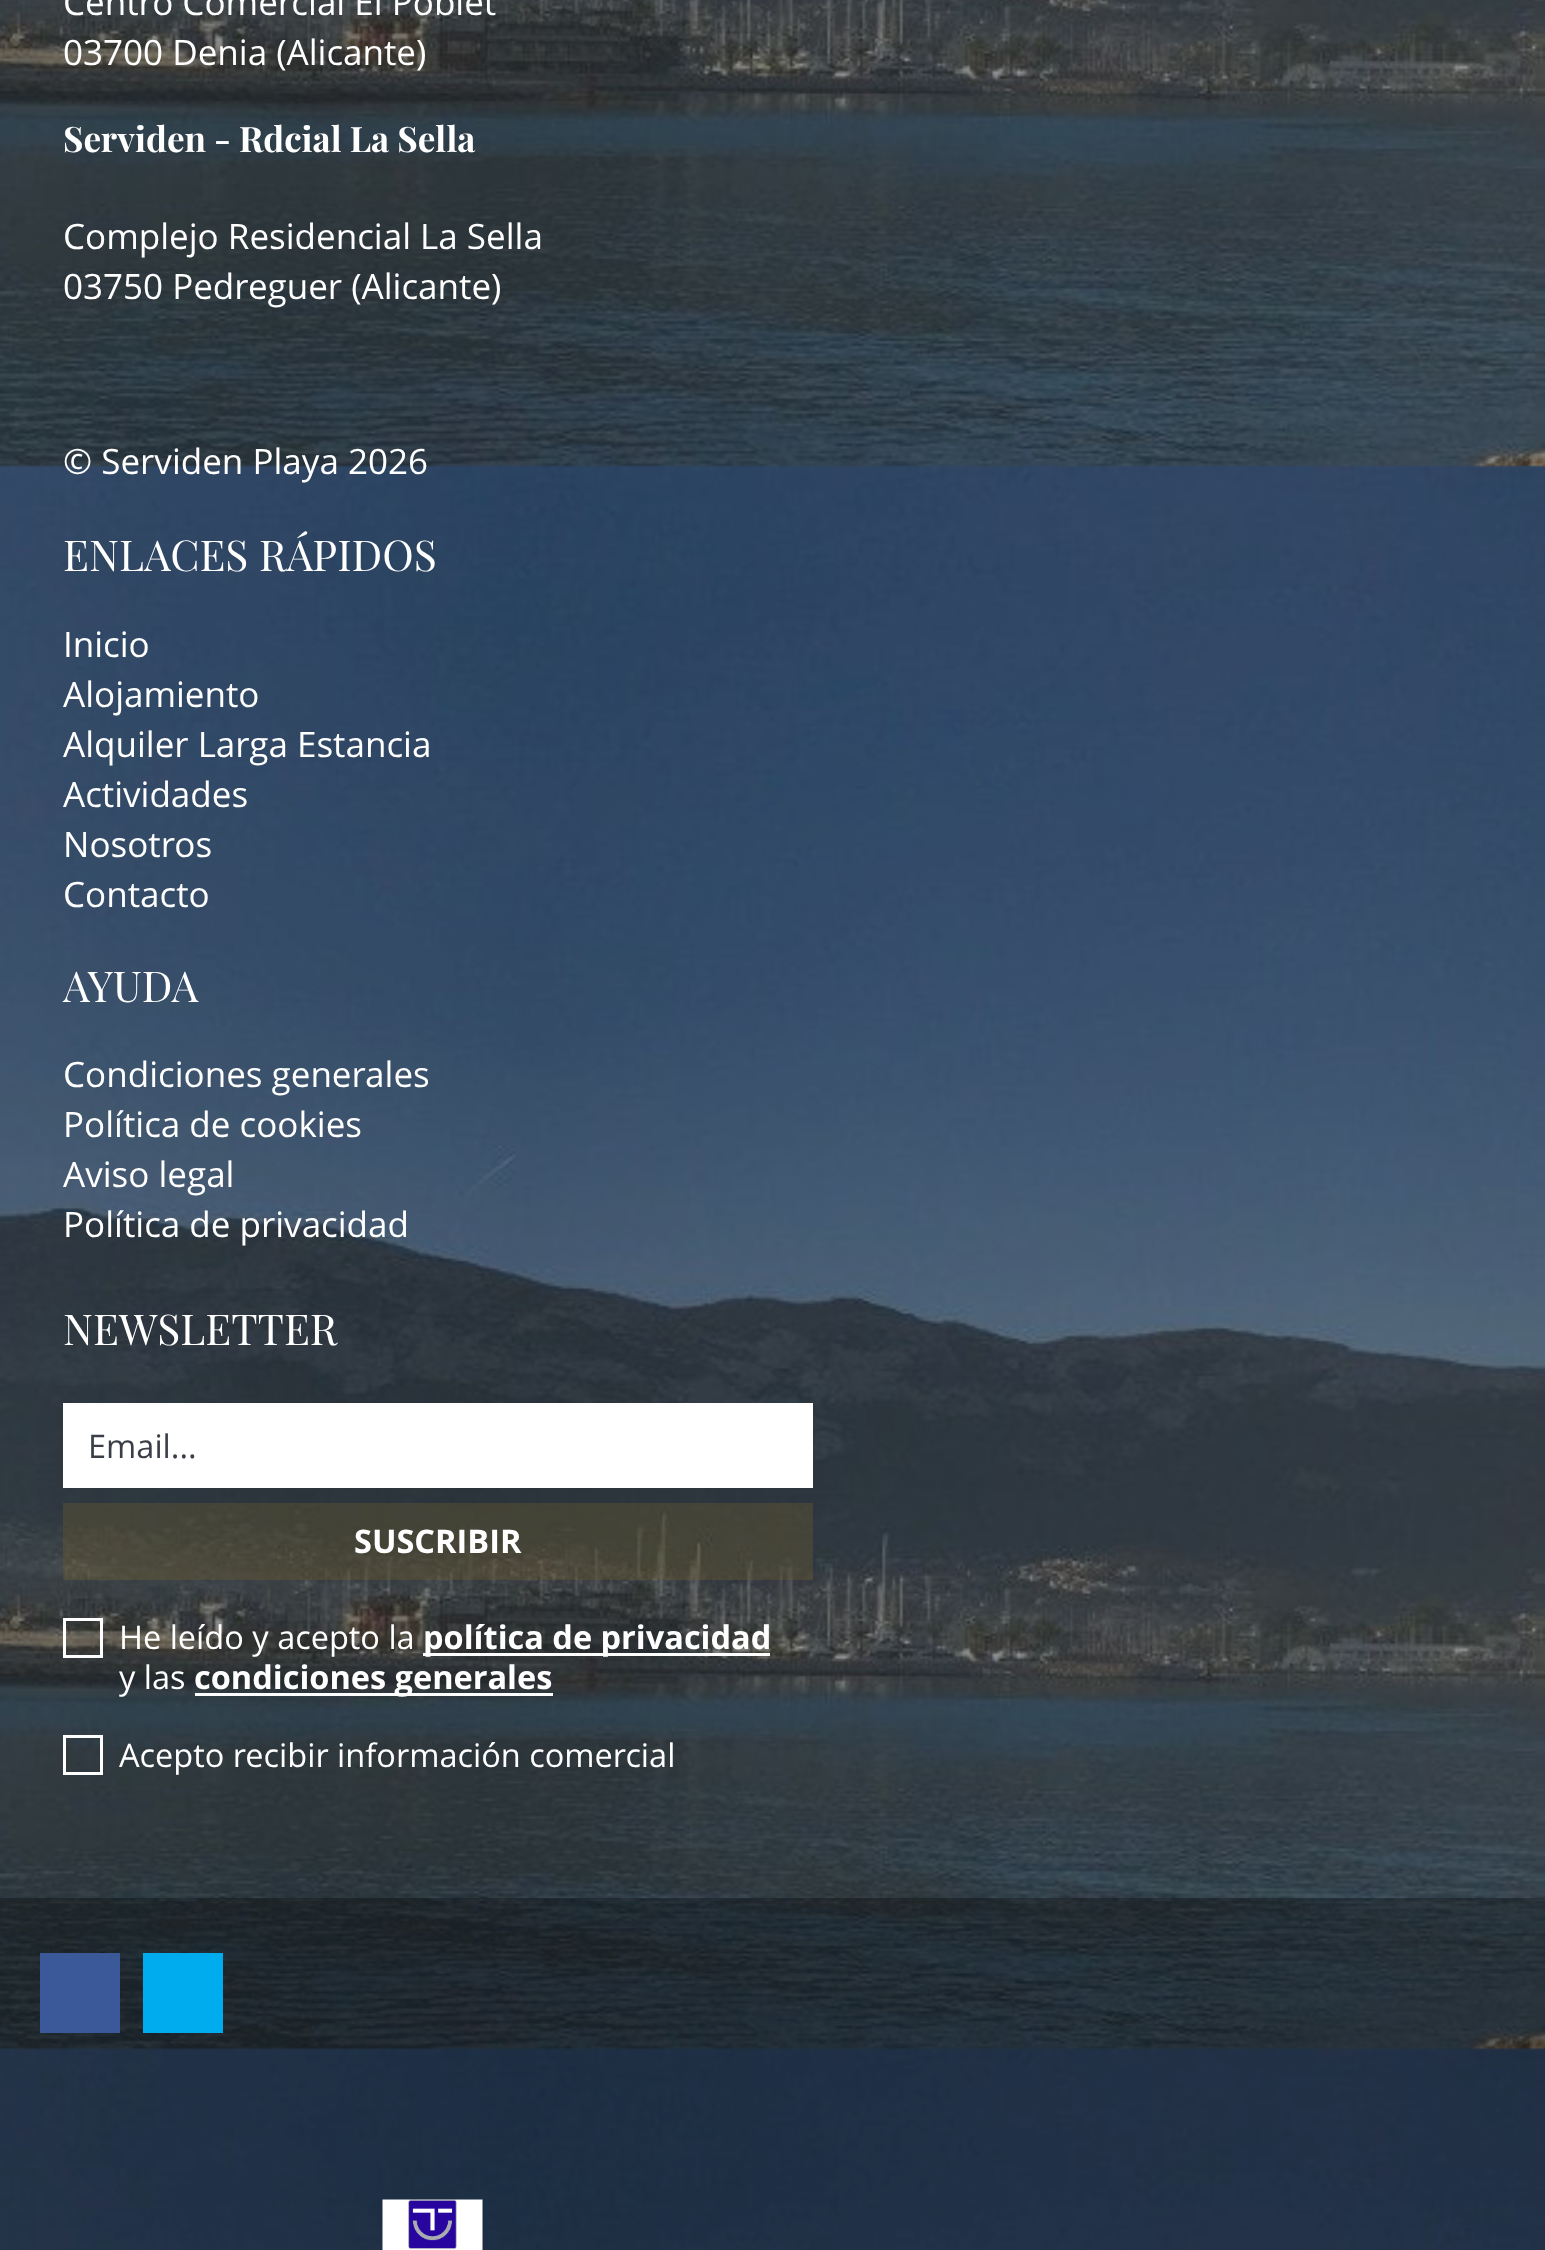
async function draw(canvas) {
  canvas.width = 1545;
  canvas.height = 2250;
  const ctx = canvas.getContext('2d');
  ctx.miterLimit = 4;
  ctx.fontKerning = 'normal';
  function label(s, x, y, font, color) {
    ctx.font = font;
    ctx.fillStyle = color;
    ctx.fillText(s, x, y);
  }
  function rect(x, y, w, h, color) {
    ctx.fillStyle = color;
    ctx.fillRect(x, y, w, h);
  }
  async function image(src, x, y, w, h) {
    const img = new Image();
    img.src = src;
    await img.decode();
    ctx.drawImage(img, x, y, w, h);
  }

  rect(0, 0, 1545, 2250, '#fff');
  await image('assets/img1.png', 0, 0, 1545, 2250);
  label('Centro Comercial El Poblet', 63, 15, '35px Open Sans', '#fff');
  label('03700 Denia (Alicante)', 63, 65, '35px Open Sans', '#fff');
  label('Serviden - Rdcial La Sella', 63, 152, 'bold 35px Playfair Display', '#fff');
  label('Complejo Residencial La Sella', 63, 249, '35px Open Sans', '#fff');
  label('03750 Pedreguer (Alicante)', 63, 299, '35px Open Sans', '#fff');
  label('© Serviden Playa 2026', 63, 474, '35px Open Sans', '#fff');
  label('ENLACES RÁPIDOS', 63, 571, '42.5px Playfair Display', '#fff');
  label('Inicio', 63, 657, '35px Open Sans', '#fff');
  label('Alojamiento', 63, 707, '35px Open Sans', '#fff');
  label('Alquiler Larga Estancia', 63, 757, '35px Open Sans', '#fff');
  label('Actividades', 63, 807, '35px Open Sans', '#fff');
  label('Nosotros', 63, 857, '35px Open Sans', '#fff');
  label('Contacto', 63, 907, '35px Open Sans', '#fff');
  label('AYUDA', 63, 1002, '42.5px Playfair Display', '#fff');
  label('Condiciones generales', 63, 1087, '35px Open Sans', '#fff');
  label('Política de cookies', 63, 1137, '35px Open Sans', '#fff');
  label('Aviso legal', 63, 1187, '35px Open Sans', '#fff');
  label('Política de privacidad', 63, 1237, '35px Open Sans', '#fff');
  label('NEWSLETTER', 63, 1345, '42.5px Playfair Display', '#fff');
  rect(63, 1403, 750, 85, '#fff');
  label('Email...', 88, 1458, '32.5px Open Sans', '#393e47');
  rect(63, 1503, 750, 77, '#79622a4d');
  label('SUSCRIBIR', 354, 1553, 'bold 32.5px Open Sans', '#fff');
  ctx.strokeStyle = '#fff';
  ctx.lineWidth = 3;
  ctx.strokeRect(64.5, 1619.5, 37, 37);
  label('He leído y acepto la', 119, 1649, '32.5px Open Sans', '#fff');
  rect(423, 1653, 347, 3, '#fff');
  label('política de privacidad', 423, 1649, 'bold 32.5px Open Sans', '#fff');
  label('y las', 119, 1689, '32.5px Open Sans', '#fff');
  rect(195, 1693, 358, 3, '#fff');
  label('condiciones generales', 194, 1689, 'bold 32.5px Open Sans', '#fff');
  ctx.strokeRect(64.5, 1736.5, 37, 37);
  label('Acepto recibir información comercial', 119, 1767, '32.5px Open Sans', '#fff');
  rect(0, 1898, 1545, 352, '#0000004d');
  rect(40, 1953, 80, 80, '#3b5998');
  rect(143, 1953, 80, 80, '#00aced');
  await image('assets/img2.png', 382, 2199, 101, 51);
}

draw(document.querySelector('canvas'));
